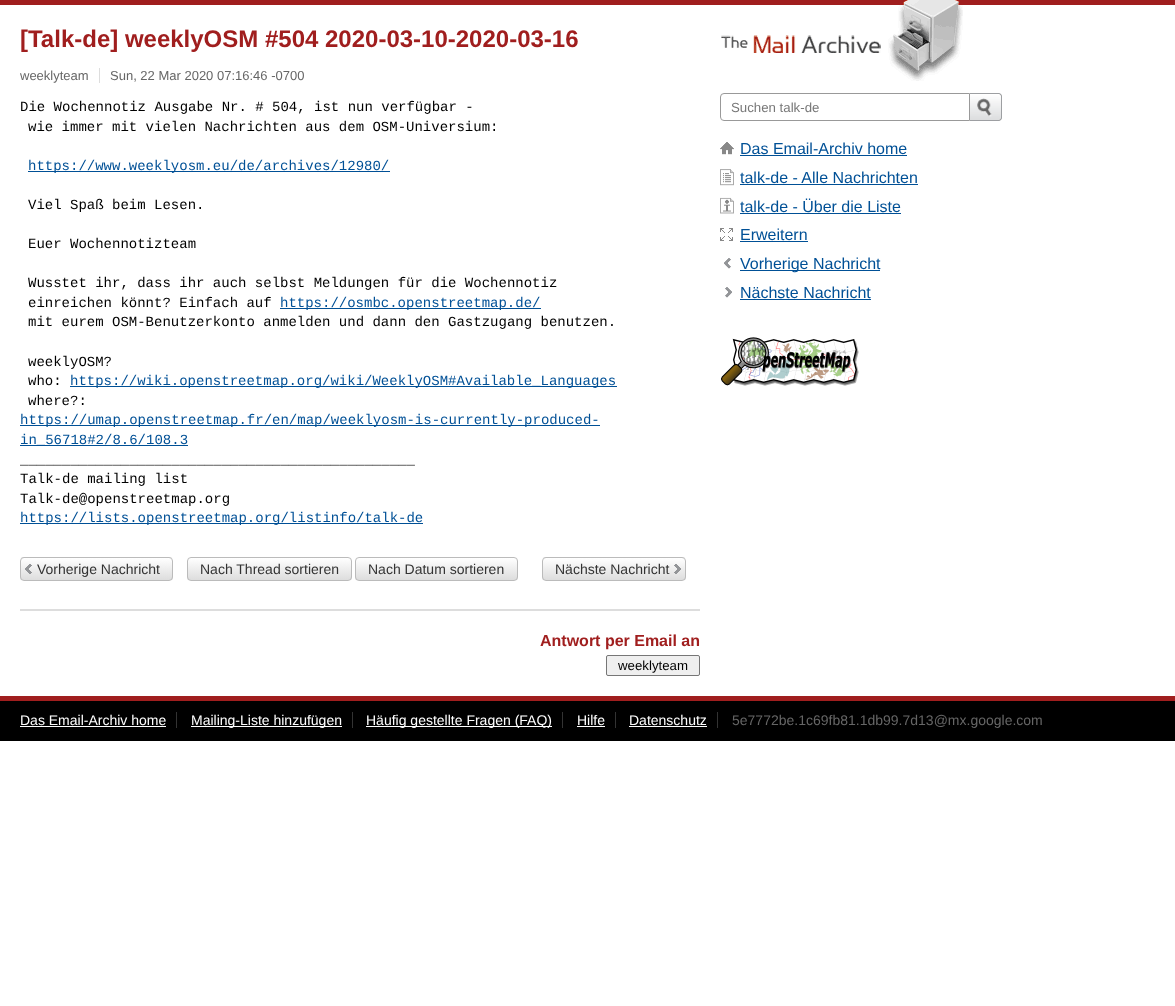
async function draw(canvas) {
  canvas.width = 1175;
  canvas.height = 1006;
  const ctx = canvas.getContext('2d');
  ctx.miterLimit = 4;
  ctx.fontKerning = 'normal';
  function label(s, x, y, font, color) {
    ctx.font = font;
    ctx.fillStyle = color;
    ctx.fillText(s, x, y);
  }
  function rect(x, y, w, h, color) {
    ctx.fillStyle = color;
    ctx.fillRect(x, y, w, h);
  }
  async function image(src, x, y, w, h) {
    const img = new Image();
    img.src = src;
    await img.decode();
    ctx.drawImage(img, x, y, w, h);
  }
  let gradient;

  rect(0, 0, 1175, 1006, '#fff');
  rect(0, 0, 1175, 5, '#a01e1e');
  label('[Talk-de] weeklyOSM #504 2020-03-10-2020-03-16', 20, 47, 'bold 24px Liberation Sans', '#a01e1e');
  label('weeklyteam', 20, 80, '13px Liberation Sans', '#666');
  rect(99, 68, 1, 15, '#ddd');
  label('Sun, 22 Mar 2020 07:16:46 -0700', 110, 80, '13px Liberation Sans', '#666');
  label('Die Wochennotiz Ausgabe Nr. # 504, ist nun verfügbar -', 20, 111, '14px Liberation Mono', '#000');
  label('wie immer mit vielen Nachrichten aus dem OSM-Universium:', 28, 131, '14px Liberation Mono', '#000');
  rect(28, 171, 362, 1, '#005096');
  label('https://www.weeklyosm.eu/de/archives/12980/', 28, 170, '14px Liberation Mono', '#005096');
  label('Viel Spaß beim Lesen.', 28, 209, '14px Liberation Mono', '#000');
  label('Euer Wochennotizteam', 28, 248, '14px Liberation Mono', '#000');
  label('Wusstet ihr, dass ihr auch selbst Meldungen für die Wochennotiz', 28, 287, '14px Liberation Mono', '#000');
  label('einreichen könnt? Einfach auf', 28, 307, '14px Liberation Mono', '#000');
  rect(280, 308, 261, 1, '#005096');
  label('https://osmbc.openstreetmap.de/', 280, 307, '14px Liberation Mono', '#005096');
  label('mit eurem OSM-Benutzerkonto anmelden und dann den Gastzugang benutzen.', 28, 326, '14px Liberation Mono', '#000');
  label('weeklyOSM?', 28, 366, '14px Liberation Mono', '#000');
  label('who:', 28, 385, '14px Liberation Mono', '#000');
  rect(70, 386, 547, 1, '#005096');
  label('https://wiki.openstreetmap.org/wiki/WeeklyOSM#Available_Languages', 70, 385, '14px Liberation Mono', '#005096');
  label('where?:', 28, 405, '14px Liberation Mono', '#000');
  rect(20, 425, 580, 1, '#005096');
  label('https://umap.openstreetmap.fr/en/map/weeklyosm-is-currently-produced-', 20, 424, '14px Liberation Mono', '#005096');
  rect(20, 445, 168, 1, '#005096');
  label('in_56718#2/8.6/108.3', 20, 444, '14px Liberation Mono', '#005096');
  label('_______________________________________________', 20, 464, '14px Liberation Mono', '#000');
  label('Talk-de mailing list', 20, 483, '14px Liberation Mono', '#000');
  label('Talk-de@openstreetmap.org', 20, 503, '14px Liberation Mono', '#000');
  rect(20, 523, 403, 1, '#005096');
  label('https://lists.openstreetmap.org/listinfo/talk-de', 20, 522, '14px Liberation Mono', '#005096');
  await image('assets/img1.png', 20, 557, 153, 24);
  ctx.beginPath();
  ctx.roundRect(20.5, 557.5, 152, 23, 3.5);
  ctx.strokeStyle = '#bbb';
  ctx.stroke();
  label('Vorherige Nachricht', 37, 574, '14px Liberation Sans', '#333');
  ctx.save();
  ctx.beginPath();
  ctx.roundRect(187, 557, 165, 24, 4);
  ctx.clip();
  gradient = ctx.createLinearGradient(270, 558, 270, 580);
  gradient.addColorStop(0, '#fff');
  gradient.addColorStop(1, '#ddd');
  ctx.fillStyle = gradient;
  ctx.fillRect(187, 558, 165, 22);
  ctx.restore();
  ctx.beginPath();
  ctx.roundRect(187.5, 557.5, 164, 23, 3.5);
  ctx.stroke();
  label('Nach Thread sortieren', 200, 574, '14px Liberation Sans', '#333');
  ctx.save();
  ctx.beginPath();
  ctx.roundRect(355, 557, 163, 24, 4);
  ctx.clip();
  gradient = ctx.createLinearGradient(437, 558, 437, 580);
  gradient.addColorStop(0, '#fff');
  gradient.addColorStop(1, '#ddd');
  ctx.fillStyle = gradient;
  ctx.fillRect(355, 558, 163, 22);
  ctx.restore();
  ctx.beginPath();
  ctx.roundRect(355.5, 557.5, 162, 23, 3.5);
  ctx.stroke();
  label('Nach Datum sortieren', 368, 574, '14px Liberation Sans', '#333');
  await image('assets/img2.png', 542, 557, 144, 24);
  ctx.beginPath();
  ctx.roundRect(542.5, 557.5, 143, 23, 3.5);
  ctx.stroke();
  label('Nächste Nachricht', 555, 574, '14px Liberation Sans', '#333');
  rect(20, 609, 680, 2, '#ddd');
  label('Antwort per Email an', 540, 646, 'bold 16px Liberation Sans', '#a01e1e');
  ctx.fillStyle = '#efefef';
  ctx.beginPath();
  ctx.roundRect(606.5, 655.5, 93, 20, 1.5);
  ctx.fill();
  ctx.strokeStyle = '#767676';
  ctx.stroke();
  label('weeklyteam', 618, 670, '13.25px Liberation Sans', '#000');
  await image('assets/img3.png', 721, 0, 242, 81);
  ctx.beginPath();
  ctx.roundRect(720.5, 93.5, 249, 27, [3.5, 0, 0, 3.5]);
  ctx.strokeStyle = '#999';
  ctx.stroke();
  label('Suchen talk-de', 731, 112, '13.25px Liberation Sans', '#777');
  await image('assets/img4.png', 970, 93, 32, 28);
  await image('assets/img5.png', 720, 142, 14, 13);
  label('Das Email-Archiv home', 740, 154, '16px Liberation Sans', '#005096');
  rect(740, 155, 167, 1, '#005096');
  await image('assets/img6.png', 720, 169, 14, 17);
  label('talk-de - Alle Nachrichten', 740, 183, '16px Liberation Sans', '#005096');
  rect(740, 184, 178, 1, '#005096');
  await image('assets/img7.png', 720, 197, 14, 17);
  label('talk-de - Über die Liste', 740, 212, '16px Liberation Sans', '#005096');
  rect(740, 213, 161, 1, '#005096');
  await image('assets/img8.png', 720, 228, 13, 13);
  label('Erweitern', 740, 240, '16px Liberation Sans', '#005096');
  rect(740, 241, 68, 1, '#005096');
  await image('assets/img9.png', 724, 258, 7, 11);
  rect(740, 270, 140, 1, '#005096');
  label('Vorherige Nachricht', 740, 269, '16px Liberation Sans', '#005096');
  await image('assets/img10.png', 725, 287, 7, 11);
  label('Nächste Nachricht', 740, 298, '16px Liberation Sans', '#005096');
  rect(740, 299, 131, 1, '#005096');
  await image('assets/img11.png', 721, 337, 138, 49);
  rect(0, 701, 1175, 40, '#000');
  rect(0, 696, 1175, 5, '#a01e1e');
  label('Das Email-Archiv home', 20, 725, '14px Liberation Sans', '#fff');
  rect(176, 712, 1, 16, '#333');
  rect(20, 726, 146, 1, '#fff');
  rect(191, 726, 151, 1, '#fff');
  label('Mailing-Liste hinzufügen', 191, 725, '14px Liberation Sans', '#fff');
  rect(352, 712, 1, 16, '#333');
  rect(366, 726, 186, 1, '#fff');
  label('Häufig gestellte Fragen (FAQ)', 366, 725, '14px Liberation Sans', '#fff');
  rect(562, 712, 1, 16, '#333');
  label('Hilfe', 577, 725, '14px Liberation Sans', '#fff');
  rect(615, 712, 1, 16, '#333');
  rect(577, 726, 28, 1, '#fff');
  label('Datenschutz', 629, 725, '14px Liberation Sans', '#fff');
  rect(717, 712, 1, 16, '#333');
  rect(629, 726, 78, 1, '#fff');
  label('5e7772be.1c69fb81.1db99.7d13@mx.google.com', 732, 725, '14px Liberation Sans', '#666');
}

draw(document.querySelector('canvas'));
